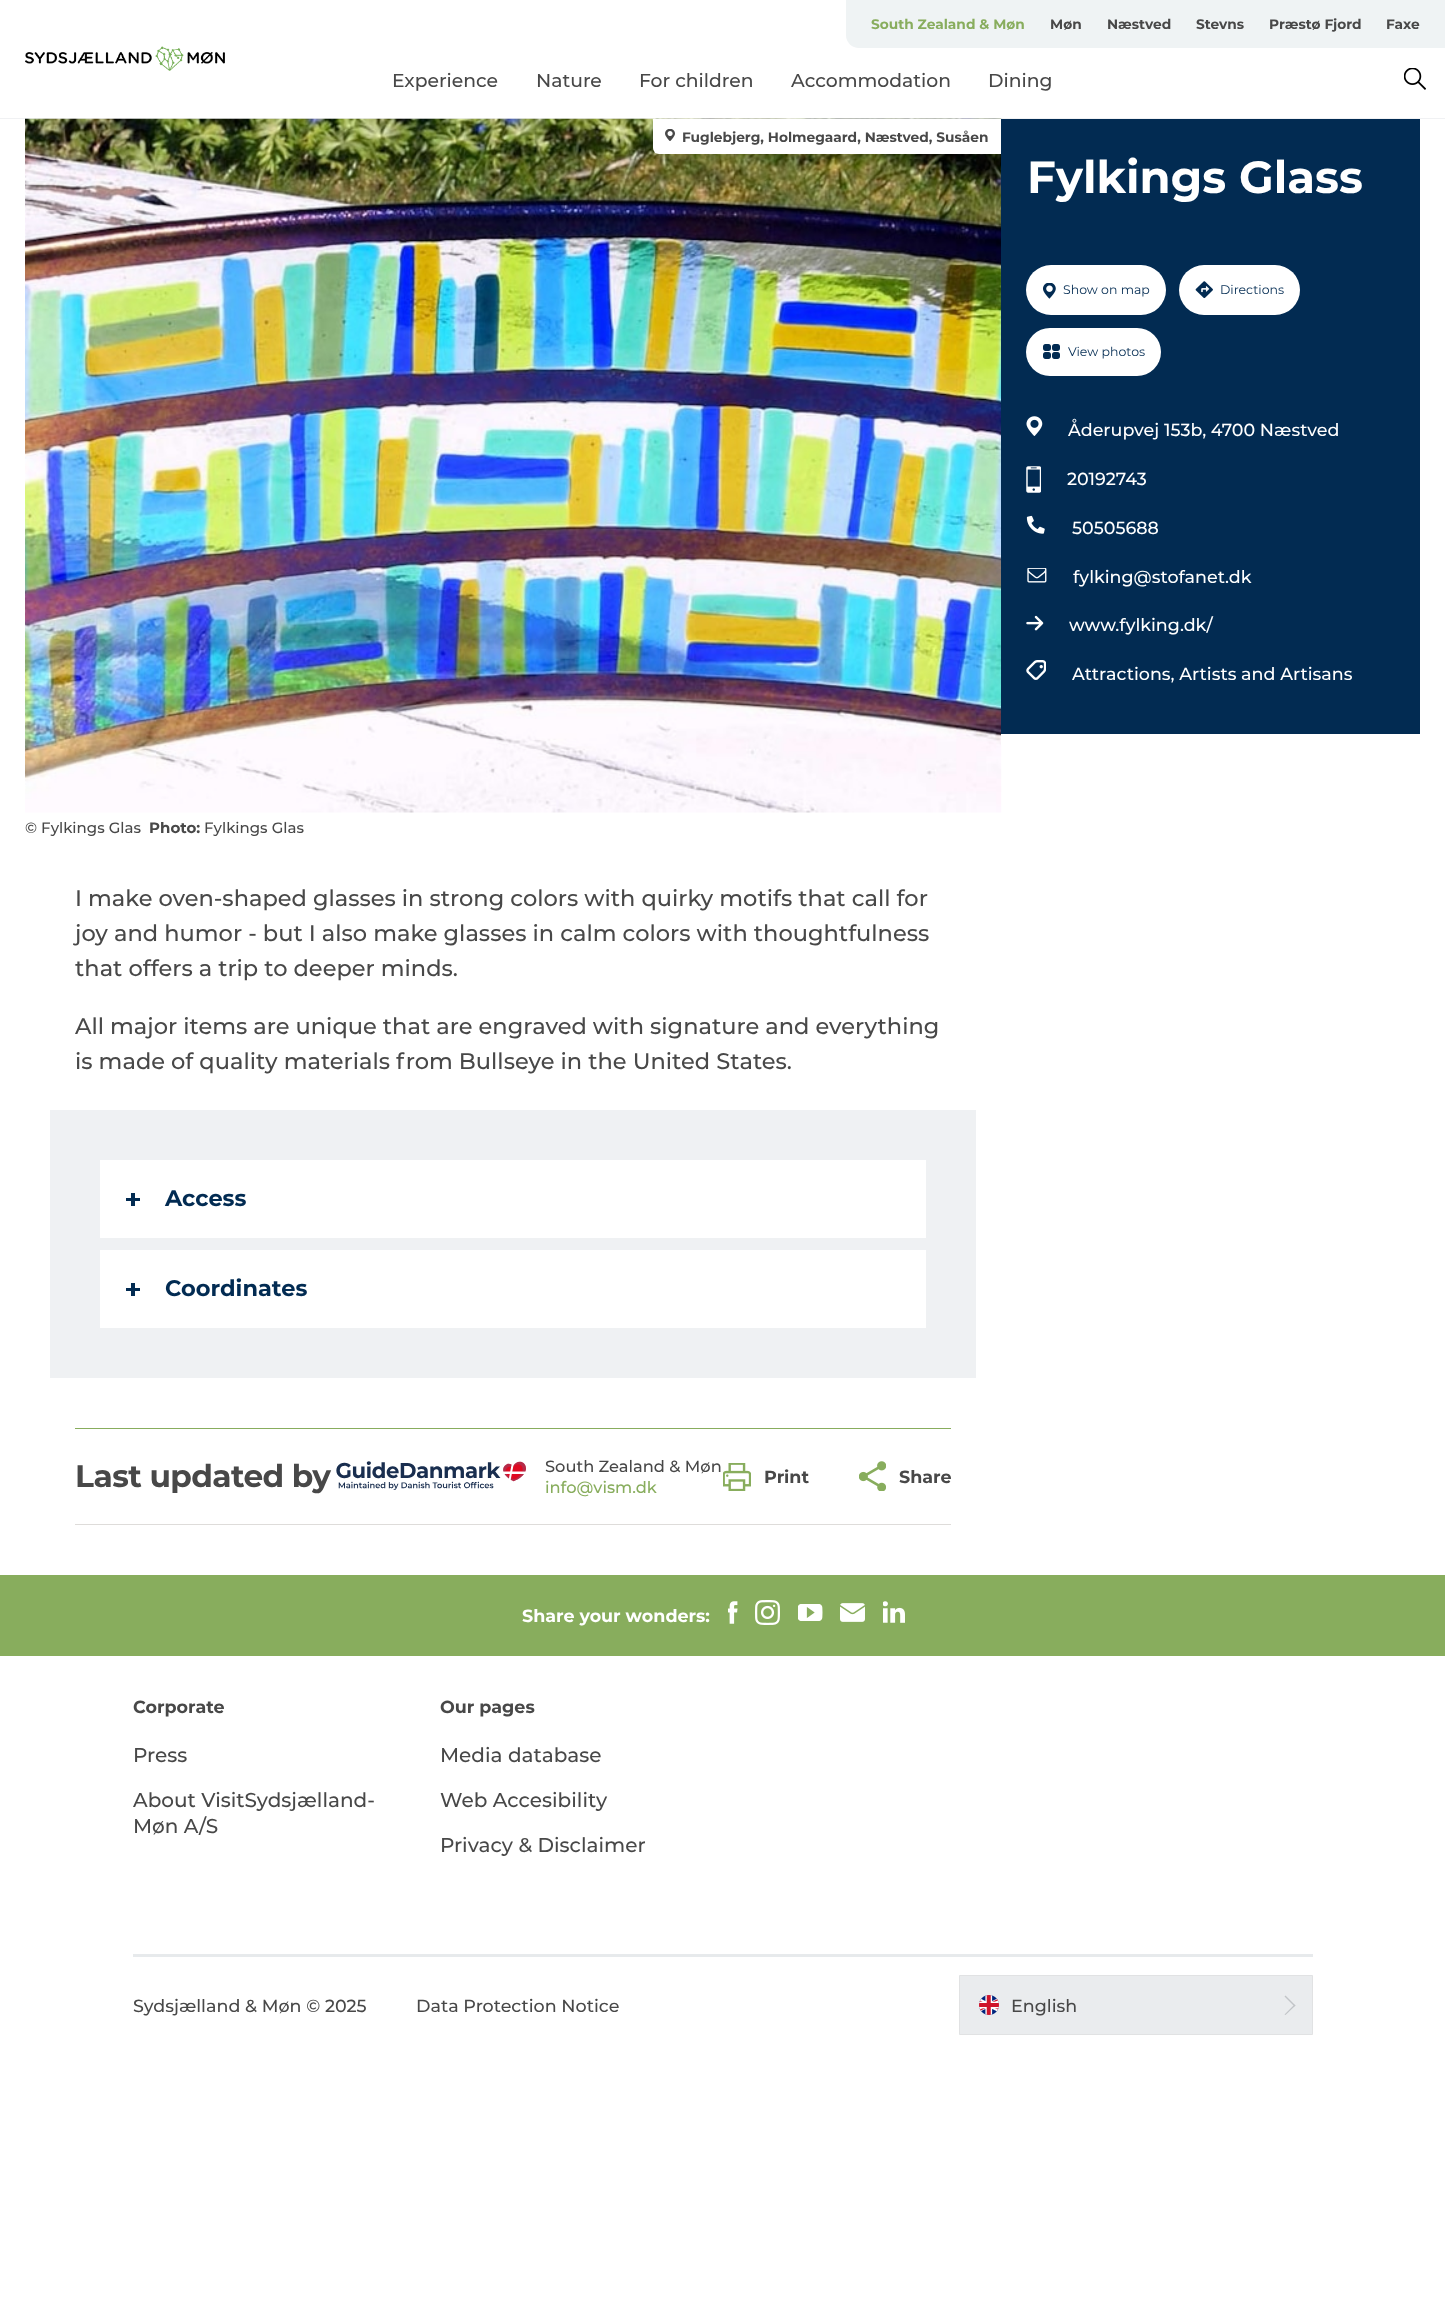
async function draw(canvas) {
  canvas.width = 1445;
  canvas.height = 2316;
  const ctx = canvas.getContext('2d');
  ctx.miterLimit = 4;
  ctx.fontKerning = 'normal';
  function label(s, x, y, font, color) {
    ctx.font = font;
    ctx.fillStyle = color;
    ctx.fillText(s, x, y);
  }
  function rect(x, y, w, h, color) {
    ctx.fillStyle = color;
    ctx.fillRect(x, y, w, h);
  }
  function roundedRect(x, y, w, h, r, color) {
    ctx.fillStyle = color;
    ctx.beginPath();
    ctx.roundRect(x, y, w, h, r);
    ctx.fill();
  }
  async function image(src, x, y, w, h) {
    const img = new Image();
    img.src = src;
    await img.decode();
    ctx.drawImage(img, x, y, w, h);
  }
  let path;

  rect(0, 0, 1445, 2316, '#fff');
  rect(0, 118, 1445, 1, '#f0f1f3');
  await image('assets/img1.png', 25, 46, 200, 25);
  ctx.fillStyle = '#eff3f4';
  ctx.beginPath();
  ctx.roundRect(846, 0, 599, 48, [0, 0, 0, 13]);
  ctx.fill();
  label('South Zealand & Møn', 871, 29, 'bold 13.75px Montserrat', '#88ad5d');
  label('Møn', 1050, 29, 'bold 13.75px Montserrat', '#484848');
  label('Næstved', 1107, 29, 'bold 13.75px Montserrat', '#484848');
  label('Stevns', 1196, 29, 'bold 13.75px Montserrat', '#484848');
  label('Præstø Fjord', 1269, 29, 'bold 13.75px Montserrat', '#484848');
  label('Faxe', 1386, 29, 'bold 13.75px Montserrat', '#484848');
  label('Experience', 392, 87, '500 18.75px Montserrat', '#484848');
  label('Nature', 536, 87, '500 18.75px Montserrat', '#484848');
  label('For children', 639, 87, '500 18.75px Montserrat', '#484848');
  label('Accommodation', 791, 87, '500 18.75px Montserrat', '#484848');
  label('Dining', 988, 87, '500 18.75px Montserrat', '#484848');
  await image('assets/img2.png', 1404, 68, 22, 22);
  await image('assets/img3.png', 25, 118, 977, 695);
  ctx.fillStyle = '#fff';
  ctx.beginPath();
  ctx.roundRect(653, 119, 348, 35, [0, 0, 0, 6]);
  ctx.fill();
  await image('assets/img4.png', 665, 129, 10, 12);
  label('Fuglebjerg, Holmegaard, Næstved, Susåen', 682, 142, 'bold 13.75px Montserrat', '#484848');
  label('© Fylkings Glas', 25, 833, '500 15px Montserrat', '#484848');
  label('Photo:', 149, 833, 'bold 15px Montserrat', '#484848');
  label('Fylkings Glas', 204, 833, '500 15px Montserrat', '#484848');
  rect(1001, 119, 419, 615, '#022b52');
  label('Fylkings Glass', 1027, 193, 'bold 45px Montserrat', '#fff');
  roundedRect(1026, 265, 140, 50, 25, '#fff');
  await image('assets/img5.png', 1043, 283, 13, 16);
  label('Show on map', 1063, 294, '12.5px Montserrat', '#022b52');
  roundedRect(1179, 265, 121, 50, 25, '#fff');
  await image('assets/img6.png', 1195, 281, 18, 18);
  label('Directions', 1220, 294, '12.5px Montserrat', '#022b52');
  roundedRect(1026, 328, 135, 48, 24, '#fff');
  await image('assets/img7.png', 1043, 344, 17, 15);
  label('View photos', 1068, 356, '12.5px Montserrat', '#022b52');
  await image('assets/img8.png', 1026, 416, 17, 20);
  label('Åderupvej 153b, 4700 Næstved', 1068, 436, '500 17.5px Montserrat', '#fff');
  await image('assets/img9.png', 1026, 466, 15, 27);
  label('20192743', 1067, 485, '500 17.5px Montserrat', '#fff');
  await image('assets/img10.png', 1026, 515, 19, 19);
  label('50505688', 1072, 534, '500 17.5px Montserrat', '#fff');
  await image('assets/img11.png', 1027, 568, 20, 15);
  label('fylking@stofanet.dk', 1073, 583, '500 17.5px Montserrat', '#fff');
  await image('assets/img12.png', 1026, 615, 18, 16);
  label('www.fylking.dk/', 1069, 631, '500 17.5px Montserrat', '#fff');
  await image('assets/img13.png', 1026, 660, 20, 20);
  label('Attractions, Artists and Artisans', 1072, 680, '500 17.5px Montserrat', '#fff');
  rect(1001, 734, 1, 11, '#fff');
  label('I make oven-shaped glasses in strong colors with quirky motifs that call for', 75, 906, '500 22.5px Montserrat', '#484848');
  label('joy and humor - but I also make glasses in calm colors with thoughtfulness', 75, 941, '500 22.5px Montserrat', '#484848');
  label('that offers a trip to deeper minds.', 75, 976, '500 22.5px Montserrat', '#484848');
  label('All major items are unique that are engraved with signature and everything', 75, 1034, '500 22.5px Montserrat', '#484848');
  label('is made of quality materials from Bullseye in the United States.', 75, 1069, '500 22.5px Montserrat', '#484848');
  rect(50, 1110, 926, 268, '#eff1f3');
  rect(100, 1160, 826, 78, '#fff');
  rect(126, 1198, 14, 3, '#022b52');
  rect(131, 1193, 4, 13, '#022b52');
  label('Access', 165, 1206, 'bold 22.5px Montserrat', '#022b52');
  rect(100, 1250, 826, 78, '#fff');
  rect(126, 1288, 14, 3, '#022b52');
  rect(131, 1283, 4, 13, '#022b52');
  label('Coordinates', 165, 1296, 'bold 22.5px Montserrat', '#022b52');
  rect(75, 1428, 876, 1, '#88ad5d');
  rect(75, 1524, 876, 1, '#dedcda');
  ctx.letterSpacing = '-0.6px';
  label('Last updated by', 75, 1487, 'bold 31.25px Montserrat', '#484848');
  await image('assets/img14.png', 336, 1461, 190, 29);
  ctx.letterSpacing = '0px';
  label('South Zealand & Møn', 545, 1472, '500 16.25px Montserrat', '#484848');
  label('info@vism.dk', 545, 1493, '500 16.25px Montserrat', '#88ad5d');
  await image('assets/img15.png', 723, 1463, 28, 28);
  label('Print', 764, 1483, 'bold 17.5px Montserrat', '#484848');
  await image('assets/img16.png', 859, 1461, 27, 30);
  label('Share', 899, 1483, 'bold 17.5px Montserrat', '#484848');
  rect(0, 1575, 1445, 81, '#88ad5d');
  label('Share your wonders:', 522, 1622, 'bold 17.5px Montserrat', '#fff');
  await image('assets/img17.png', 728, 1601, 10, 23);
  await image('assets/img18.png', 755, 1600, 25, 25);
  await image('assets/img19.png', 798, 1604, 25, 17);
  await image('assets/img20.png', 840, 1603, 25, 19);
  await image('assets/img21.png', 883, 1601, 22, 22);
  label('Corporate', 133, 1713, 'bold 17.5px Montserrat', '#484848');
  label('Press', 133, 1762, '500 20px Montserrat', '#484848');
  label('About VisitSydsjælland-', 133, 1807, '500 20px Montserrat', '#484848');
  label('Møn A/S', 133, 1833, '500 20px Montserrat', '#484848');
  label('Our pages', 440, 1713, 'bold 17.5px Montserrat', '#484848');
  label('Media database', 440, 1762, '500 20px Montserrat', '#484848');
  label('Web Accesibility', 440, 1807, '500 20px Montserrat', '#484848');
  label('Privacy & Disclaimer', 440, 1852, '500 20px Montserrat', '#484848');
  rect(133, 1954, 1180, 3, '#e7eaec');
  label('Sydsjælland & Møn © 2025', 133, 2012, '500 17.5px Montserrat', '#484848');
  label('Data Protection Notice', 416, 2012, '500 17.5px Montserrat', '#484848');
  ctx.fillStyle = '#eaecee';
  ctx.beginPath();
  ctx.rect(959.5, 1975.5, 353, 59);
  ctx.fill();
  ctx.strokeStyle = '#e1e2e3';
  ctx.stroke();
  await image('assets/img22.png', 979, 1995, 20, 20);
  label('English', 1011, 2012, '500 17.5px Montserrat', '#484848');
  ctx.fillStyle = '#c1c4c7';
  path = new Path2D('M1285.5 1995.5L1295.5 2005.5L1294.5 2006.5L1284.5 1996.5Z');
  ctx.fill(path);
  path = new Path2D('M1294.5 2004.5L1295.5 2005.5L1285.5 2015L1284.5 2014.5Z');
  ctx.fill(path);
}

draw(document.querySelector('canvas'));
